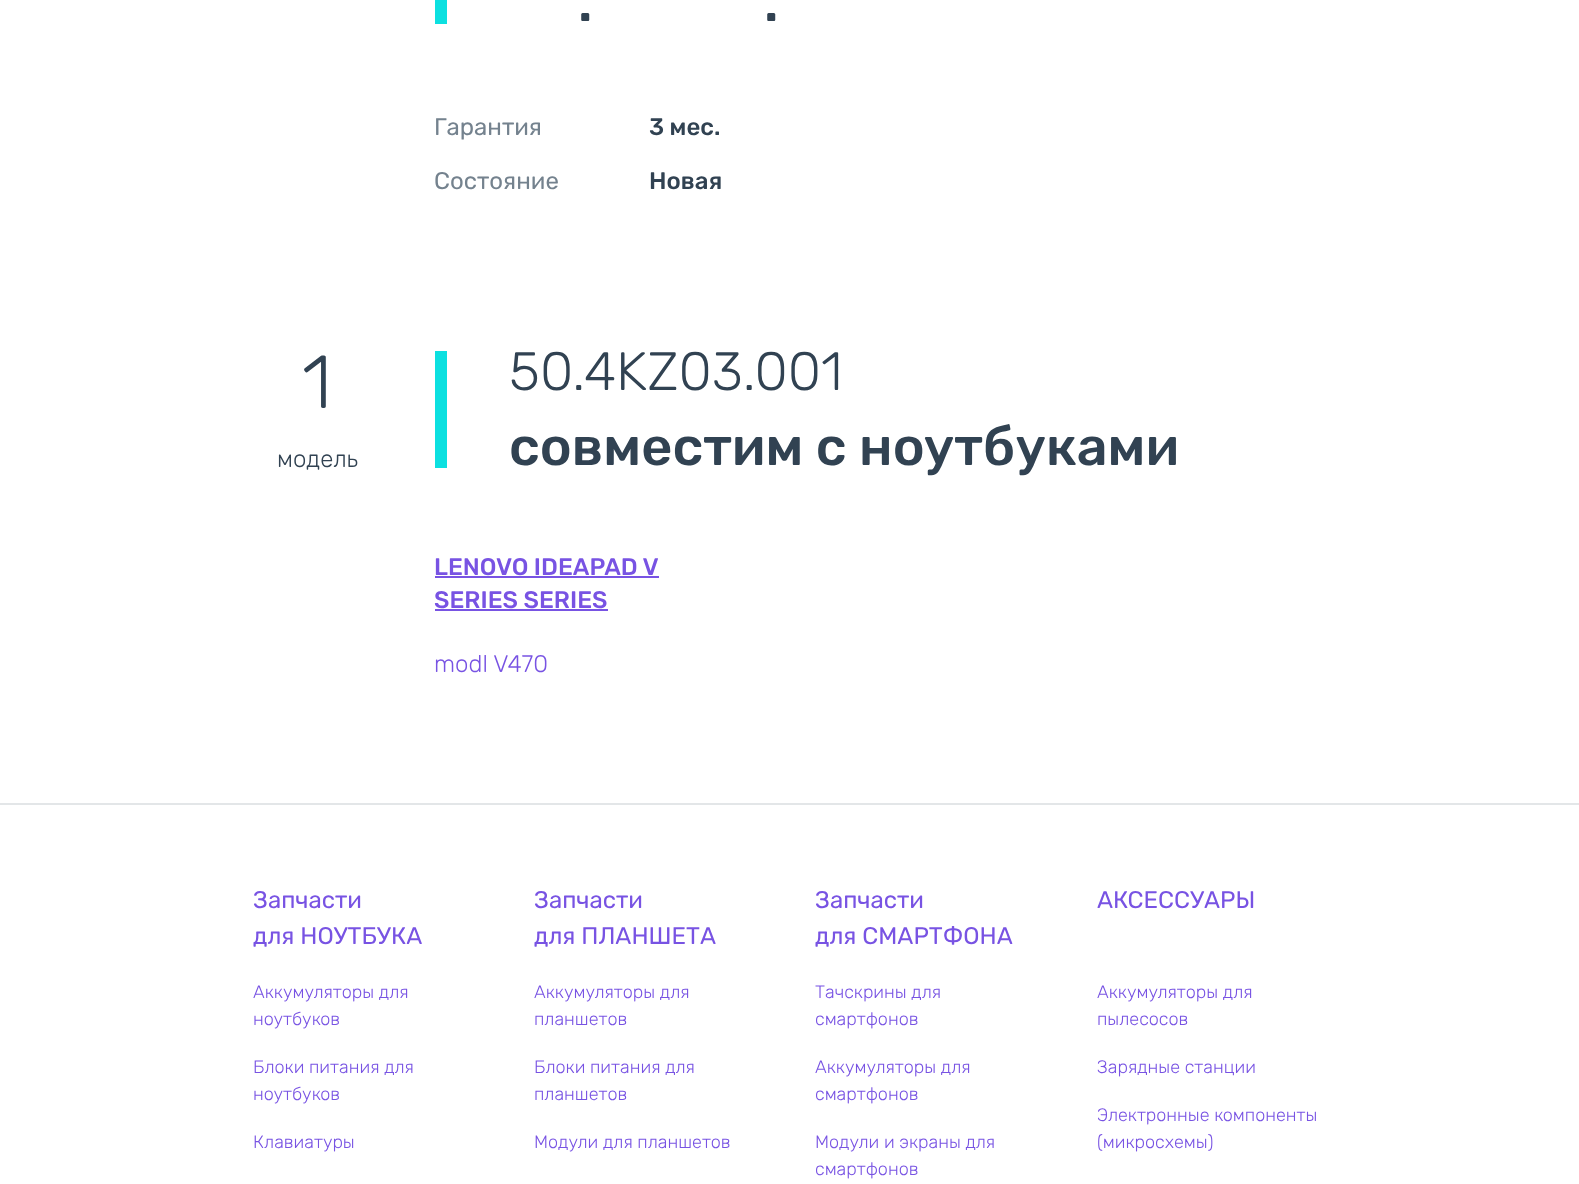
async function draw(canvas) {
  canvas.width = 1579;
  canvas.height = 1184;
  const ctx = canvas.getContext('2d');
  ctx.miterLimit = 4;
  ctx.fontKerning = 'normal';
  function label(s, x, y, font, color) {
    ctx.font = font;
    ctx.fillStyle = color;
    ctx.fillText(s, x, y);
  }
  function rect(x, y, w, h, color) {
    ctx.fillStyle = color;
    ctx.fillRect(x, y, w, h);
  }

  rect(0, 0, 1579, 1184, '#fff');
  rect(435, 0, 12, 24, '#0ce0e0');
  label('.', 578, 21, '500 54px Rubik', '#314252');
  label('.', 764, 21, '500 54px Rubik', '#314252');
  label('Гарантия', 434, 135, '24px Rubik', '#74828e');
  label('3 мес.', 649, 135, '500 24px Rubik', '#314252');
  label('Состояние', 434, 189, '24px Rubik', '#74828e');
  label('Новая', 649, 189, '500 24px Rubik', '#314252');
  label('1', 302, 408, '300 75px Rubik', '#314252');
  label('модель', 277, 467, '300 24px Rubik', '#314252');
  rect(435, 351, 12, 117, '#0ce0e0');
  label('50.4KZ03.001', 509, 390, '300 54px Rubik', '#314252');
  label('совместим с ноутбуками', 509, 465, '500 54px Rubik', '#314252');
  label('LENOVO IDEAPAD V', 434, 575, '500 24px Rubik', '#7853e3');
  rect(435, 576, 224, 2, '#7853e3');
  label('SERIES SERIES', 434, 608, '500 24px Rubik', '#7853e3');
  rect(435, 609, 173, 2, '#7853e3');
  label('modl V470', 434, 672, '300 24px Rubik', '#7853e3');
  rect(0, 803, 1579, 2, '#e3e6e8');
  label('Запчасти', 253, 908, '24px Rubik', '#7853e3');
  label('для НОУТБУКА', 253, 944, '24px Rubik', '#7853e3');
  label('Аккумуляторы для', 253, 998, '300 18px Rubik', '#7853e3');
  label('ноутбуков', 253, 1025, '300 18px Rubik', '#7853e3');
  label('Блоки питания для', 253, 1073, '300 18px Rubik', '#7853e3');
  label('ноутбуков', 253, 1100, '300 18px Rubik', '#7853e3');
  label('Клавиатуры', 253, 1148, '300 18px Rubik', '#7853e3');
  label('Запчасти', 534, 908, '24px Rubik', '#7853e3');
  label('для ПЛАНШЕТА', 534, 944, '24px Rubik', '#7853e3');
  label('Аккумуляторы для', 534, 998, '300 18px Rubik', '#7853e3');
  label('планшетов', 534, 1025, '300 18px Rubik', '#7853e3');
  label('Блоки питания для', 534, 1073, '300 18px Rubik', '#7853e3');
  label('планшетов', 534, 1100, '300 18px Rubik', '#7853e3');
  label('Модули для планшетов', 534, 1148, '300 18px Rubik', '#7853e3');
  label('Запчасти', 815, 908, '24px Rubik', '#7853e3');
  label('для СМАРТФОНА', 815, 944, '24px Rubik', '#7853e3');
  label('Тачскрины для', 815, 998, '300 18px Rubik', '#7853e3');
  label('смартфонов', 815, 1025, '300 18px Rubik', '#7853e3');
  label('Аккумуляторы для', 815, 1073, '300 18px Rubik', '#7853e3');
  label('смартфонов', 815, 1100, '300 18px Rubik', '#7853e3');
  label('Модули и экраны для', 815, 1148, '300 18px Rubik', '#7853e3');
  label('смартфонов', 815, 1175, '300 18px Rubik', '#7853e3');
  label('АКСЕССУАРЫ', 1097, 908, '24px Rubik', '#7853e3');
  label('Аккумуляторы для', 1097, 998, '300 18px Rubik', '#7853e3');
  label('пылесосов', 1097, 1025, '300 18px Rubik', '#7853e3');
  label('Зарядные станции', 1097, 1073, '300 18px Rubik', '#7853e3');
  label('Электронные компоненты', 1097, 1121, '300 18px Rubik', '#7853e3');
  label('(микросхемы)', 1097, 1148, '300 18px Rubik', '#7853e3');
}

draw(document.querySelector('canvas'));
